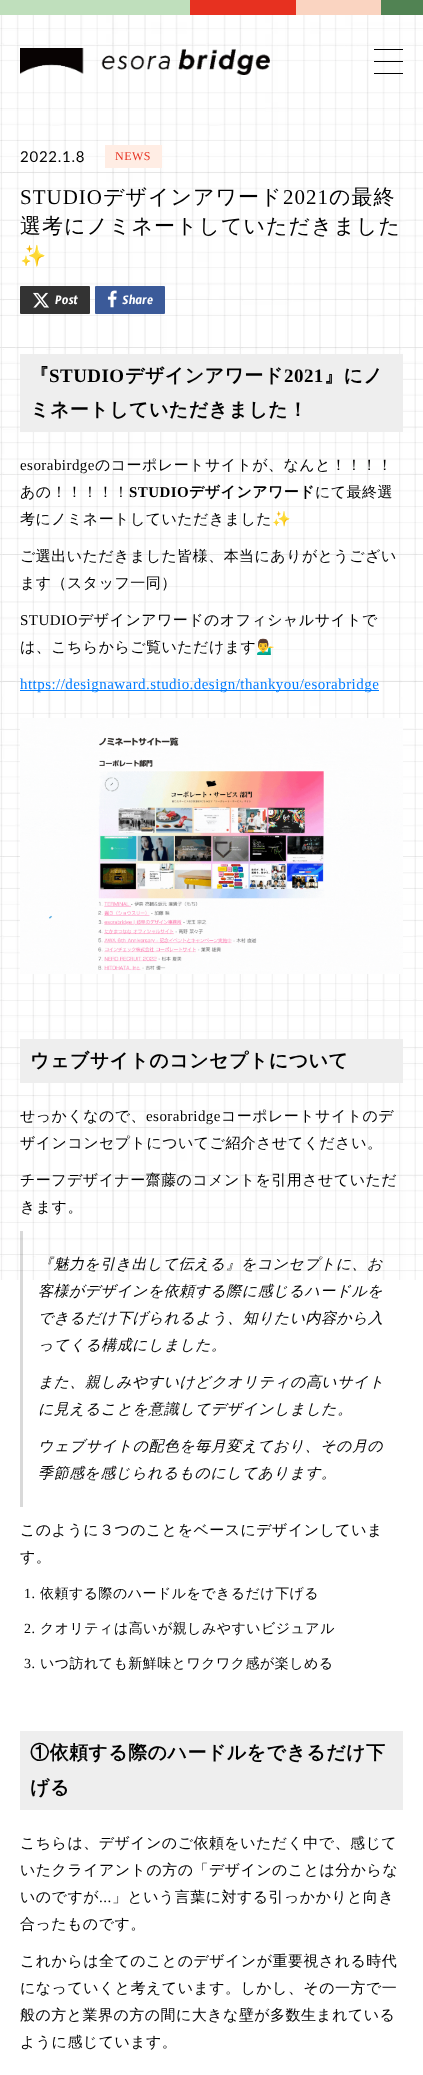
async function draw(canvas) {
  canvas.width = 423;
  canvas.height = 2075;
  const ctx = canvas.getContext('2d');
  ctx.miterLimit = 4;
  ctx.fontKerning = 'normal';
  function label(s, x, y, font, color) {
    ctx.font = font;
    ctx.fillStyle = color;
    ctx.fillText(s, x, y);
  }
  function rect(x, y, w, h, color) {
    ctx.fillStyle = color;
    ctx.fillRect(x, y, w, h);
  }
  function roundedRect(x, y, w, h, r, color) {
    ctx.fillStyle = color;
    ctx.beginPath();
    ctx.roundRect(x, y, w, h, r);
    ctx.fill();
  }
  async function image(src, x, y, w, h) {
    const img = new Image();
    img.src = src;
    await img.decode();
    ctx.drawImage(img, x, y, w, h);
  }

  rect(0, 0, 423, 2075, '#fff');
  rect(0, 0, 190, 15, '#bfdfbc');
  rect(190, 0, 106, 15, '#e73120');
  rect(296, 0, 85, 15, '#fad4c1');
  rect(381, 0, 42, 15, '#518353');
  await image('assets/img2.png', 0, 15, 423, 1265);
  await image('assets/img1.png', 20, 48, 250, 27);
  rect(374, 49, 29, 1, '#000');
  rect(374, 61, 29, 1, '#000');
  rect(374, 73, 29, 1, '#000');
  ctx.letterSpacing = '0.75px';
  label('2022.1.8', 20, 162, '15px Lato', '#000');
  rect(105, 145, 57, 23, '#ffede4');
  ctx.letterSpacing = '0.5px';
  label('NEWS', 115, 160, '12px Liberation Serif', '#e73120');
  ctx.letterSpacing = '1px';
  label('STUDIO', 20, 204, '21px Liberation Serif', '#000');
  label('デザインアワード', 103, 204, '500 21px WenQuanYi Zen Hei', '#000');
  label('2021', 283, 204, '21px Liberation Serif', '#000');
  label('の最終', 329, 204, '500 21px WenQuanYi Zen Hei', '#000');
  label('選考にノミネートしていただきました', 20, 233, '500 21px WenQuanYi Zen Hei', '#000');
  label('✨', 20, 263, '21px Noto Color Emoji', '#000');
  roundedRect(20, 286, 70, 28, 1, '#333');
  await image('assets/img3.png', 33, 292, 16, 16);
  ctx.letterSpacing = '0px';
  label('Post', 55, 304, '14px Timmana', '#fff');
  roundedRect(95, 286, 70, 28, 1, '#3b5a99');
  await image('assets/img4.png', 107, 290, 10, 18);
  label('Share', 122, 304, '14px Timmana', '#fff');
  rect(20, 354, 383, 78, '#eee');
  ctx.letterSpacing = '0.45px';
  label('『', 30, 382, 'bold 19px WenQuanYi Zen Hei', '#000');
  label('STUDIO', 49, 382, 'bold 19px Liberation Serif', '#000');
  label('デザインアワード', 125, 382, 'bold 19px WenQuanYi Zen Hei', '#000');
  label('2021', 284, 382, 'bold 19px Liberation Serif', '#000');
  label('』にノ', 324, 382, 'bold 19px WenQuanYi Zen Hei', '#000');
  label('ミネートしていただきました！', 30, 416, 'bold 19px WenQuanYi Zen Hei', '#000');
  label('esorabirdge', 20, 470, '15px Liberation Serif', '#000');
  label('のコーポレートサイトが、なんと！！！！', 95, 470, '500 15px WenQuanYi Zen Hei', '#000');
  label('あの！！！！！', 20, 497, '500 15px WenQuanYi Zen Hei', '#000');
  label('STUDIO', 129, 497, 'bold 15px Liberation Serif', '#000');
  label('デザインアワード', 189, 497, 'bold 15px WenQuanYi Zen Hei', '#000');
  label('にて最終選', 315, 497, '500 15px WenQuanYi Zen Hei', '#000');
  label('考にノミネートしていただきました', 20, 524, '500 15px WenQuanYi Zen Hei', '#000');
  label('✨', 272, 524, '15px Noto Color Emoji', '#000');
  label('ご選出いただきました皆様、本当にありがとうござい', 20, 561, '500 15px WenQuanYi Zen Hei', '#000');
  label('ます（スタッフ一同）', 20, 588, '500 15px WenQuanYi Zen Hei', '#000');
  label('STUDIO', 20, 625, '15px Liberation Serif', '#000');
  label('デザインアワードのオフィシャルサイトで', 78, 625, '500 15px WenQuanYi Zen Hei', '#000');
  label('は、こちらからご覧いただけます', 20, 652, '500 15px WenQuanYi Zen Hei', '#000');
  label('💁‍♂️', 256, 652, '15px Noto Color Emoji', '#000');
  rect(20, 690, 359, 1, '#007cff');
  label('https://designaward.studio.design/thankyou/esorabridge', 20, 689, '15px Liberation Serif', '#007cff');
  await image('assets/img5.png', 20, 718, 383, 256);
  rect(20, 1039, 383, 44, '#eee');
  label('ウェブサイトのコンセプトについて', 30, 1067, 'bold 19px WenQuanYi Zen Hei', '#000');
  label('せっかくなので、', 20, 1121, '500 15px WenQuanYi Zen Hei', '#000');
  label('esorabridge', 146, 1121, '15px Liberation Serif', '#000');
  label('コーポレートサイトのデ', 221, 1121, '500 15px WenQuanYi Zen Hei', '#000');
  label('ザインコンセプトについてご紹介させてください。', 20, 1148, '500 15px WenQuanYi Zen Hei', '#000');
  label('チーフデザイナー齋藤のコメントを引用させていただ', 20, 1185, '500 15px WenQuanYi Zen Hei', '#000');
  label('きます。', 20, 1212, '500 15px WenQuanYi Zen Hei', '#000');
  rect(20, 1231, 3, 276, '#00000026');
  label('『魅力を引き出して伝える』をコンセプトに、お', 38, 1269, 'italic 500 15px WenQuanYi Zen Hei', '#000');
  label('客様がデザインを依頼する際に感じるハードルを', 38, 1296, 'italic 500 15px WenQuanYi Zen Hei', '#000');
  label('できるだけ下げられるよう、知りたい内容から入', 38, 1323, 'italic 500 15px WenQuanYi Zen Hei', '#000');
  label('ってくる構成にしました。', 38, 1350, 'italic 500 15px WenQuanYi Zen Hei', '#000');
  label('また、親しみやすいけどクオリティの高いサイト', 38, 1387, 'italic 500 15px WenQuanYi Zen Hei', '#000');
  label('に見えることを意識してデザインしました。', 38, 1414, 'italic 500 15px WenQuanYi Zen Hei', '#000');
  label('ウェブサイトの配色を毎月変えており、その月の', 38, 1451, 'italic 500 15px WenQuanYi Zen Hei', '#000');
  label('季節感を感じられるものにしてあります。', 38, 1478, 'italic 500 15px WenQuanYi Zen Hei', '#000');
  label('このように３つのことをベースにデザインしていま', 20, 1535, '500 15px WenQuanYi Zen Hei', '#000');
  label('す。', 20, 1562, '500 15px WenQuanYi Zen Hei', '#000');
  label('1.', 24, 1598, '14px Liberation Serif', '#000');
  label('依頼する際のハードルをできるだけ下げる', 40, 1598, '500 14px WenQuanYi Zen Hei', '#000');
  label('2.', 24, 1633, '14px Liberation Serif', '#000');
  label('クオリティは高いが親しみやすいビジュアル', 40, 1633, '500 14px WenQuanYi Zen Hei', '#000');
  label('3.', 24, 1668, '14px Liberation Serif', '#000');
  label('いつ訪れても新鮮味とワクワク感が楽しめる', 40, 1668, '500 14px WenQuanYi Zen Hei', '#000');
  rect(20, 1731, 383, 79, '#eee');
  label('①依頼する際のハードルをできるだけ下', 30, 1759, 'bold 19px WenQuanYi Zen Hei', '#000');
  label('げる', 30, 1794, 'bold 19px WenQuanYi Zen Hei', '#000');
  label('こちらは、デザインのご依頼をいただく中で、感じて', 20, 1848, '500 15px WenQuanYi Zen Hei', '#000');
  label('いたクライアントの方の「デザインのことは分からな', 20, 1875, '500 15px WenQuanYi Zen Hei', '#000');
  label('いのですが', 20, 1902, '500 15px WenQuanYi Zen Hei', '#000');
  label('...', 99, 1902, '15px Liberation Serif', '#000');
  label('」という言葉に対する引っかかりと向き', 112, 1902, '500 15px WenQuanYi Zen Hei', '#000');
  label('合ったものです。', 20, 1929, '500 15px WenQuanYi Zen Hei', '#000');
  label('これからは全てのことのデザインが重要視される時代', 20, 1966, '500 15px WenQuanYi Zen Hei', '#000');
  label('になっていくと考えています。しかし、その一方で一', 20, 1993, '500 15px WenQuanYi Zen Hei', '#000');
  label('般の方と業界の方の間に大きな壁が多数生まれている', 20, 2020, '500 15px WenQuanYi Zen Hei', '#000');
  label('ように感じています。', 20, 2047, '500 15px WenQuanYi Zen Hei', '#000');
}

draw(document.querySelector('canvas'));
